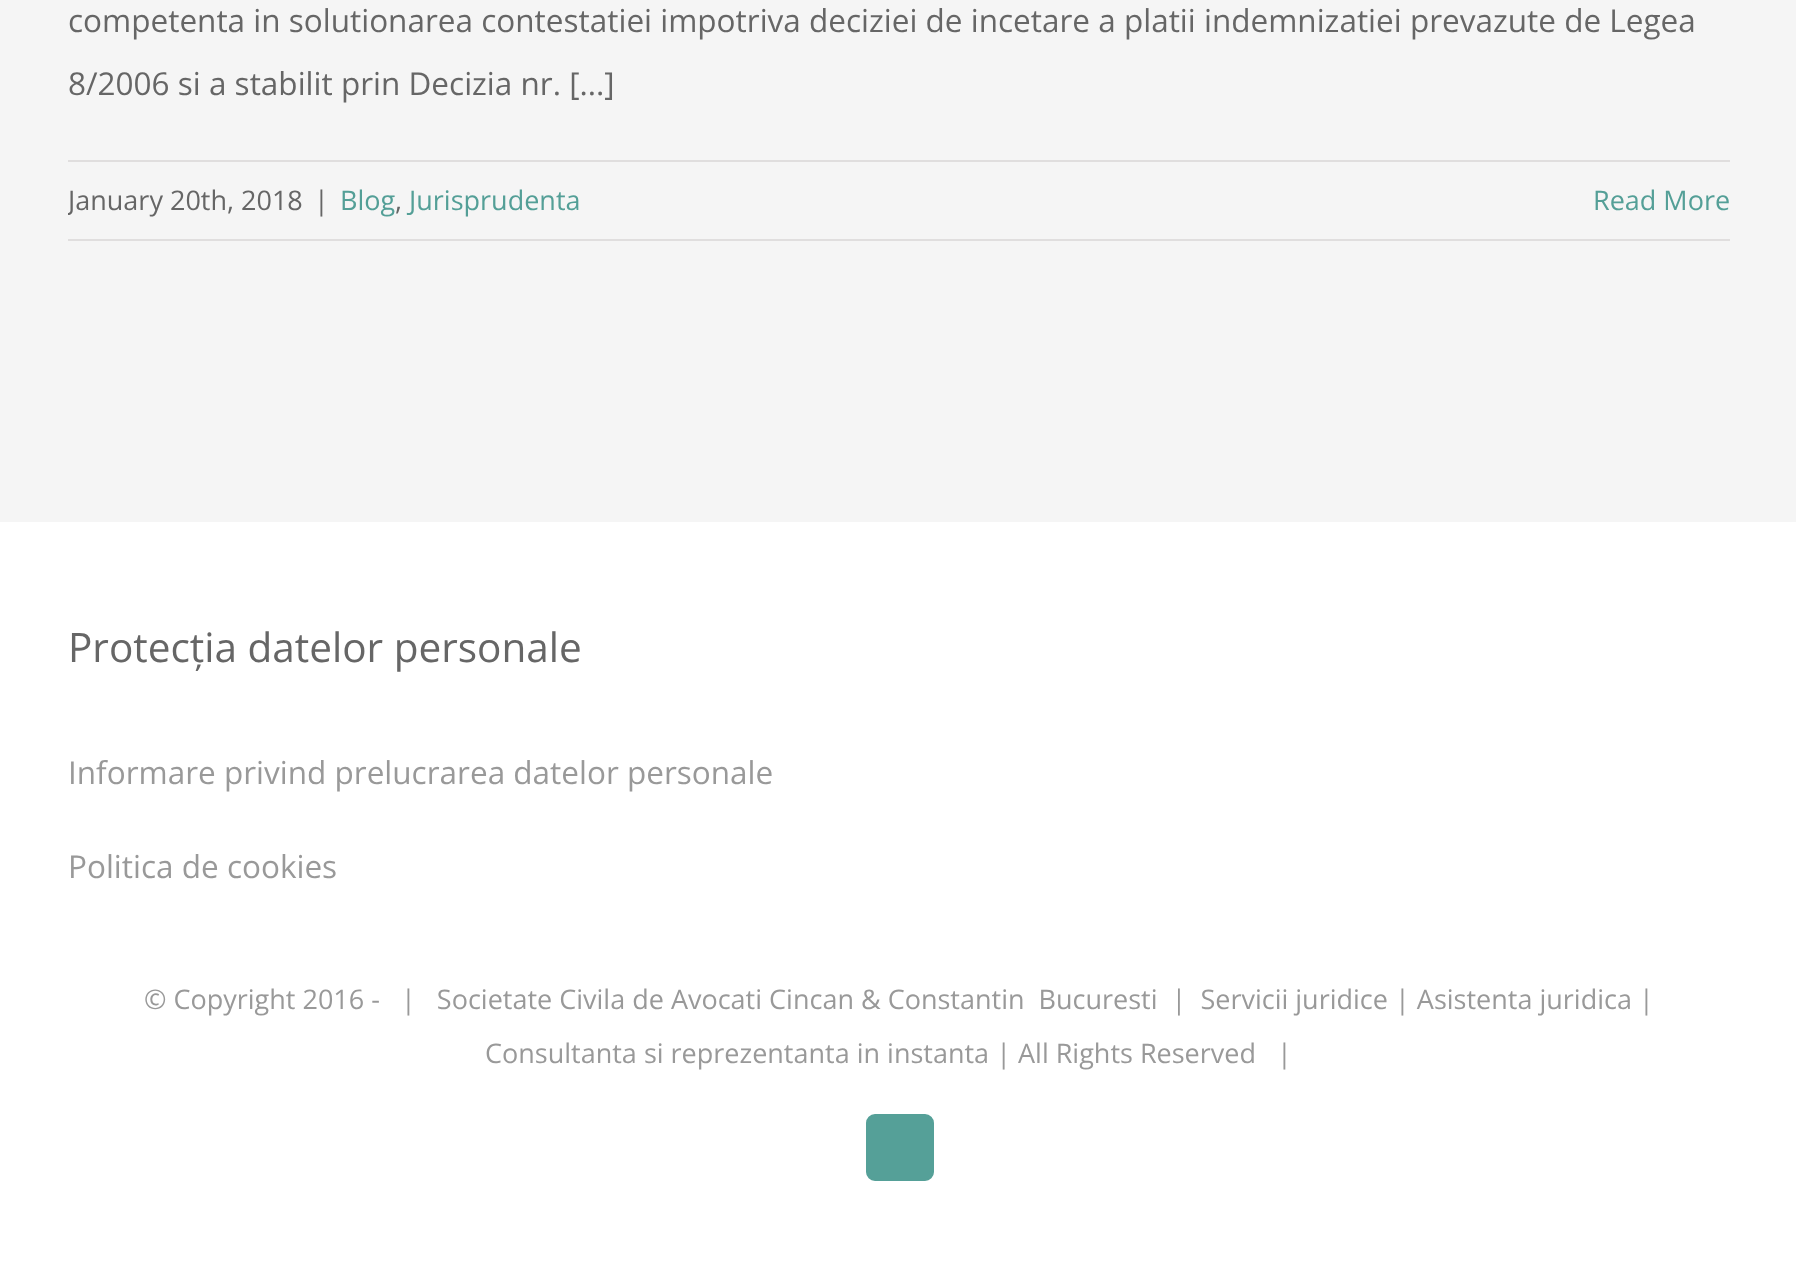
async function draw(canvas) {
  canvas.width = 1796;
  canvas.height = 1280;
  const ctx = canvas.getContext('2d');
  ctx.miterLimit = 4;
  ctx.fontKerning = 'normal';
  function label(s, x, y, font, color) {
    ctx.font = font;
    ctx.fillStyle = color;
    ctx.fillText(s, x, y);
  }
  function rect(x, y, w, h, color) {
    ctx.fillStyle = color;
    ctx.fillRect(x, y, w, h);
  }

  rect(0, 0, 1796, 1280, '#f5f5f5');
  label('competenta in solutionarea contestatiei impotriva deciziei de incetare a platii indemnizatiei prevazute de Legea', 68, 32, '31.5px Open Sans', '#666');
  label('8/2006 si a stabilit prin Decizia nr. [...]', 68, 95, '31.5px Open Sans', '#666');
  rect(68, 160, 1662, 2, '#e0dede');
  rect(68, 239, 1662, 2, '#e0dede');
  ctx.save();
  ctx.beginPath();
  ctx.rect(68, 162, 1662, 77);
  ctx.clip();
  label('January 20th, 2018', 68, 210, '27px Open Sans', '#666');
  ctx.restore();
  label('|', 314, 210, '27px Open Sans', '#666');
  label('Blog', 340, 210, '27px Open Sans', '#549f97');
  label(',', 395, 210, '27px Open Sans', '#666');
  label('Jurisprudenta', 409, 210, '27px Open Sans', '#549f97');
  label('Read More', 1593, 210, '27px Open Sans', '#549f97');
  rect(0, 522, 1796, 758, '#fff');
  label('Protecția datelor personale', 68, 662, '40.5px Open Sans', '#666');
  label('Informare privind prelucrarea datelor personale', 68, 784, '31.5px Open Sans', '#999');
  label('Politica de cookies', 68, 878, '31.5px Open Sans', '#999');
  label('© Copyright 2016 -   |   Societate Civila de Avocati Cincan & Constantin  Bucuresti  |  Servicii juridice | Asistenta juridica |', 144, 1009, '27px Open Sans', '#999');
  label('Consultanta si reprezentanta in instanta | All Rights Reserved   |', 485, 1063, '27px Open Sans', '#999');
  ctx.fillStyle = '#55a098';
  ctx.beginPath();
  ctx.roundRect(867, 1115, 66, 65, 8);
  ctx.fill();
  ctx.strokeStyle = '#55a098';
  ctx.lineWidth = 2;
  ctx.stroke();
}

draw(document.querySelector('canvas'));
